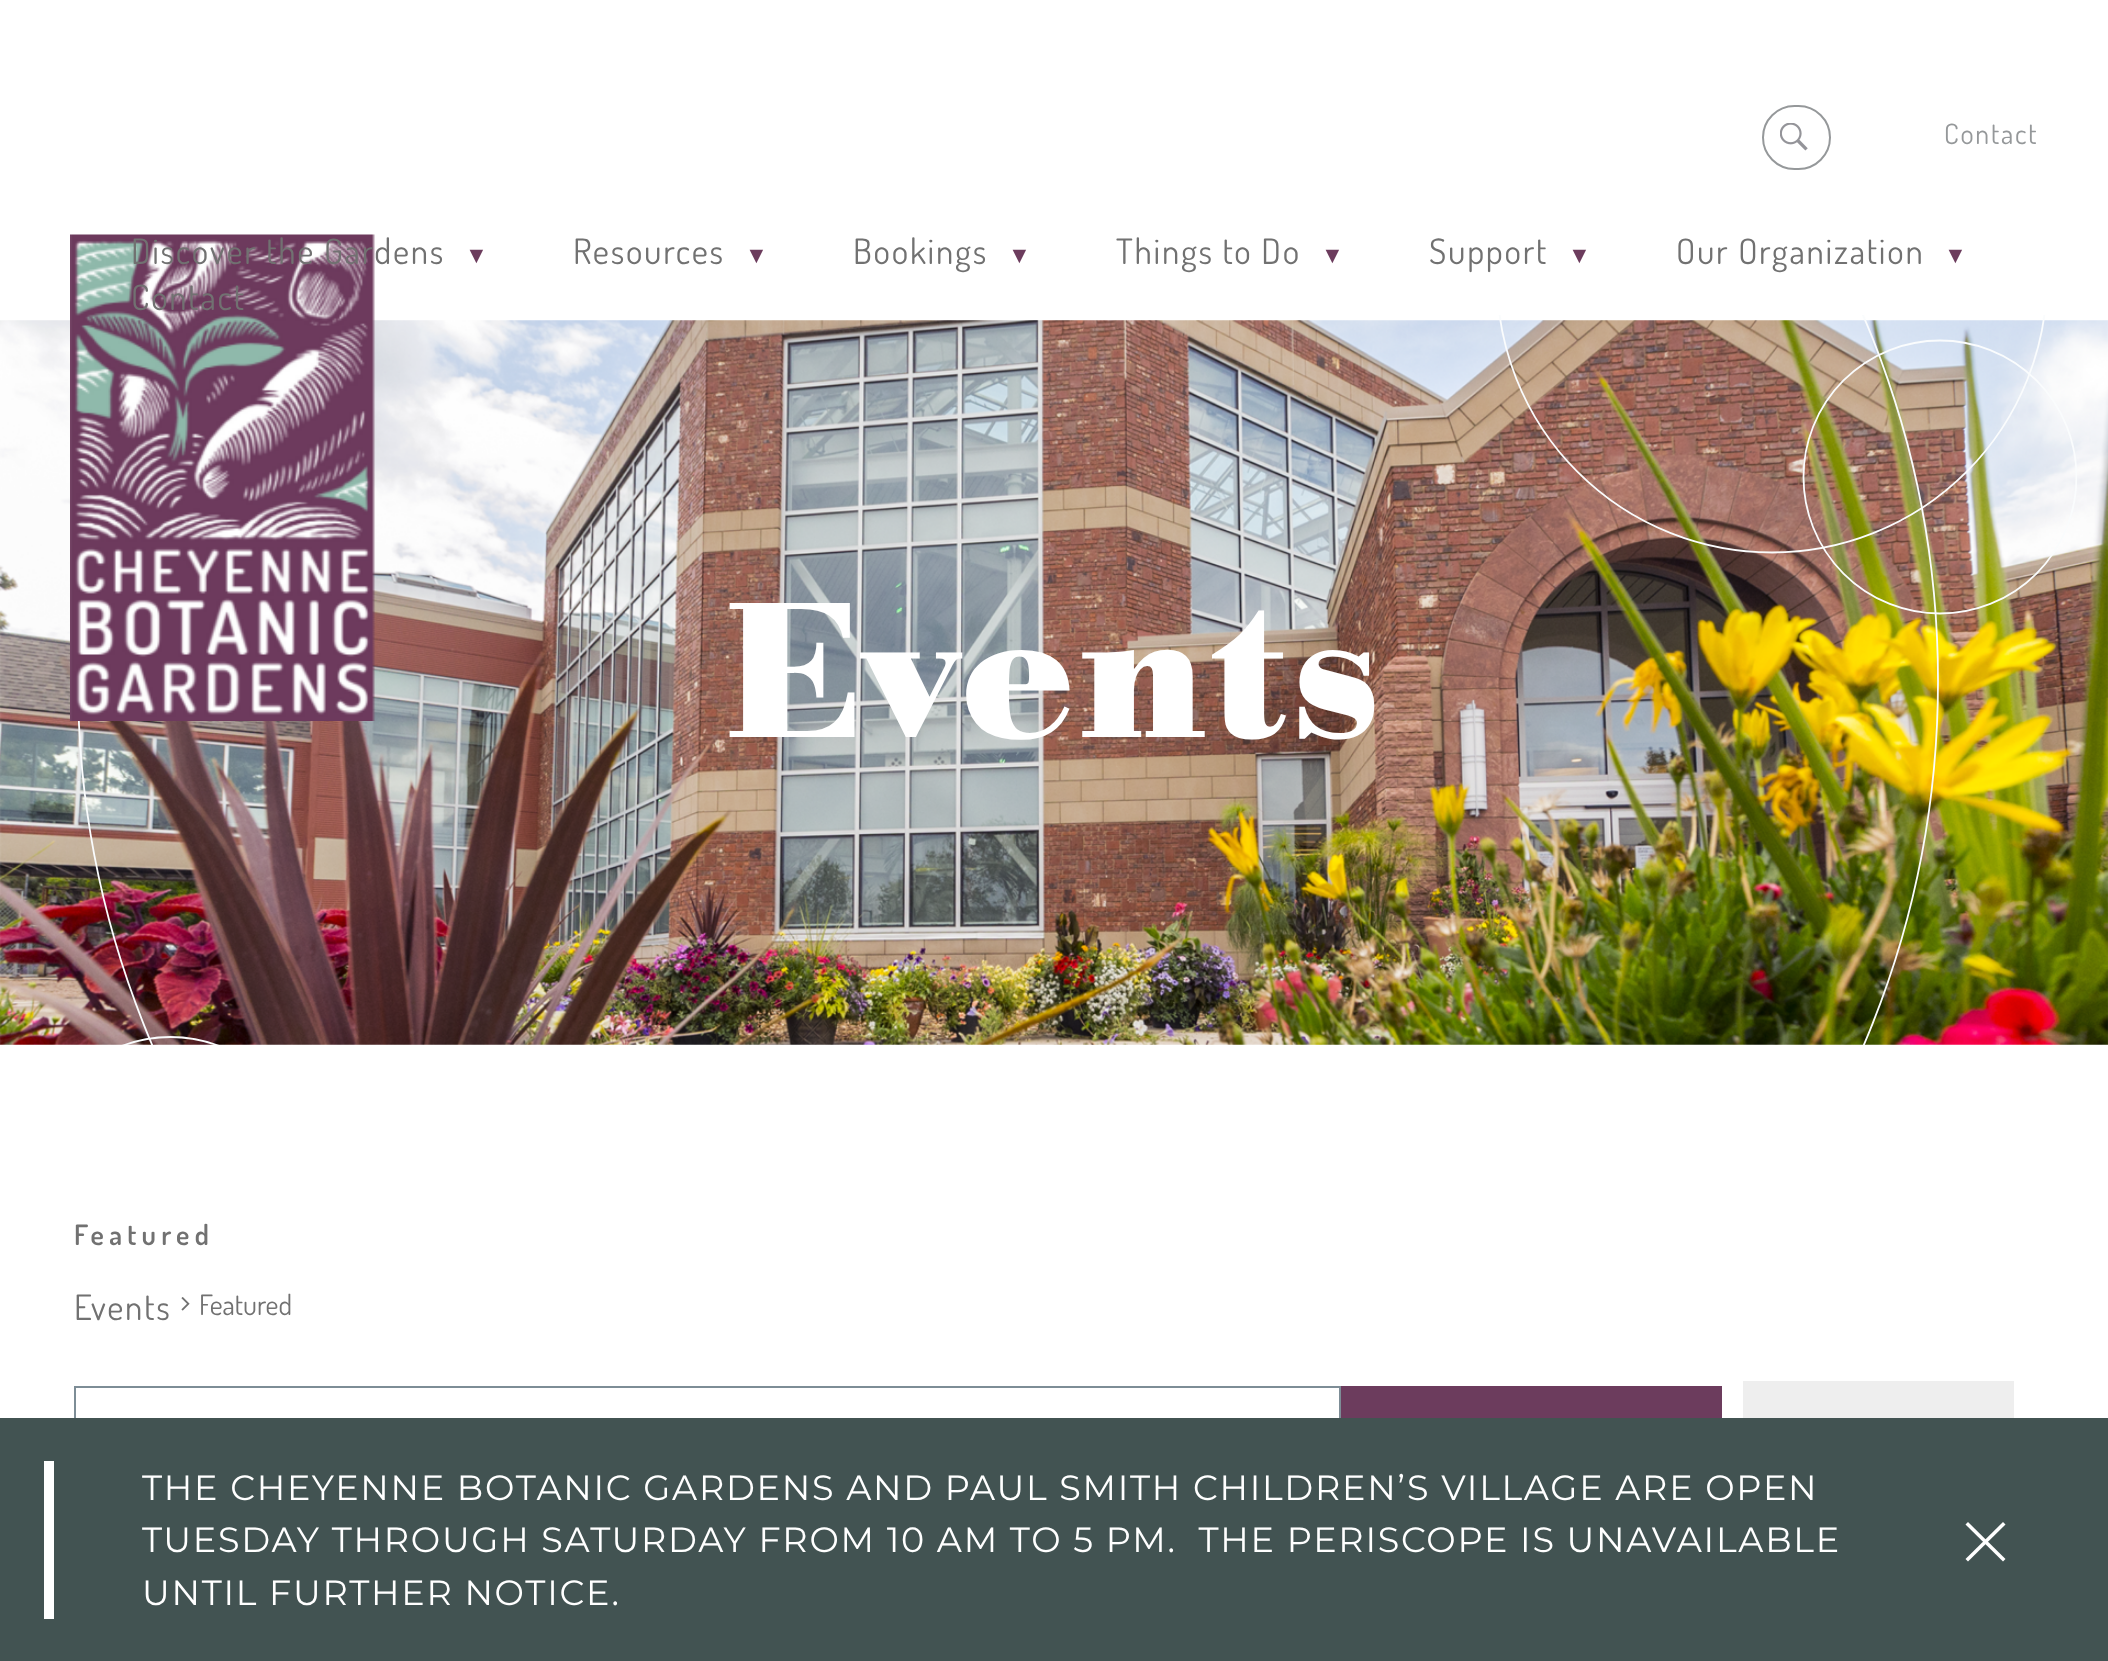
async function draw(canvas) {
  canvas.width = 2108;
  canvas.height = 1661;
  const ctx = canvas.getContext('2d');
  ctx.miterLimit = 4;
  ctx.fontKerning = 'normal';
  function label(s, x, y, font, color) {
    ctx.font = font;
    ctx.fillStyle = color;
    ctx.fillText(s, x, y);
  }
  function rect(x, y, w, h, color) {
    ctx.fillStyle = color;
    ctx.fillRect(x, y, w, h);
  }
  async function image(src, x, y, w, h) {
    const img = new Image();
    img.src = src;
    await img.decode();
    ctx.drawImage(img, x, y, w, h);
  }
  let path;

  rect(0, 0, 2108, 1661, '#fff');
  ctx.beginPath();
  ctx.roundRect(1763, 106, 67, 63, 31.5);
  ctx.strokeStyle = '#95989a';
  ctx.lineWidth = 2;
  ctx.stroke();
  await image('assets/img1.png', 1780, 123, 28, 28);
  ctx.letterSpacing = '1.75px';
  label('Contact', 1944, 144, '28px Dosis', '#95989a');
  await image('assets/img3.png', 0, 320, 2108, 725);
  ctx.save();
  ctx.beginPath();
  ctx.rect(33, 315, 2044, 730);
  ctx.clip();
  ctx.beginPath();
  ctx.arc(1008, 681, 930, 0, 2 * Math.PI);
  ctx.strokeStyle = '#fafcfd';
  ctx.lineWidth = 1.8;
  ctx.stroke();
  ctx.restore();
  await image('assets/img2.png', 70, 234, 305, 487);
  label('Discover the Gardens', 131, 264, '35px Dosis', '#717171');
  label('▼', 465, 263, '23px Liberation Sans', '#6c3c5d');
  label('Resources', 573, 264, '35px Dosis', '#717171');
  label('▼', 745, 263, '23px Liberation Sans', '#6c3c5d');
  label('Bookings', 853, 264, '35px Dosis', '#717171');
  label('▼', 1008, 263, '23px Liberation Sans', '#6c3c5d');
  label('Things to Do', 1116, 264, '35px Dosis', '#717171');
  label('▼', 1321, 263, '23px Liberation Sans', '#6c3c5d');
  label('Support', 1429, 264, '35px Dosis', '#717171');
  label('▼', 1568, 263, '23px Liberation Sans', '#6c3c5d');
  label('Our Organization', 1676, 264, '35px Dosis', '#717171');
  label('▼', 1944, 263, '23px Liberation Sans', '#6c3c5d');
  label('Contact', 131, 310, '35px Dosis', '#717171');
  ctx.save();
  ctx.beginPath();
  ctx.rect(33, 315, 2044, 730);
  ctx.clip();
  ctx.beginPath();
  ctx.arc(1772, 277.5, 275, 0, 2 * Math.PI);
  ctx.strokeStyle = '#fafcfd';
  ctx.lineWidth = 1.8;
  ctx.stroke();
  ctx.beginPath();
  ctx.arc(1940, 477, 136.5, 0, 2 * Math.PI);
  ctx.stroke();
  ctx.beginPath();
  ctx.arc(170.5, 1173.5, 136.5, 0, 2 * Math.PI);
  ctx.stroke();
  ctx.restore();
  ctx.letterSpacing = '5.25px';
  label('Events', 723, 737, 'bold 201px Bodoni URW', '#fff');
  label('Featured', 74, 1245, '600 28px Dosis', '#717171');
  ctx.letterSpacing = '1.75px';
  label('Events', 74, 1320, '35px Dosis', '#717171');
  await image('assets/img4.png', 181, 1297, 9, 14);
  ctx.letterSpacing = '0px';
  label('Featured', 199, 1315, '28px Dosis', '#717171');
  ctx.strokeStyle = '#7d8d96';
  ctx.strokeRect(75, 1387, 1265, 100);
  rect(1341, 1386, 381, 32, '#6c3c5d');
  rect(1743, 1381, 271, 37, '#eee');
  rect(0, 1418, 2108, 243, '#425352');
  rect(44, 1461, 10, 158, '#fff');
  ctx.letterSpacing = '1.75px';
  label('THE CHEYENNE BOTANIC GARDENS AND PAUL SMITH CHILDREN’S VILLAGE ARE OPEN', 142, 1500, '35px Montserrat', '#fff');
  label('TUESDAY THROUGH SATURDAY FROM 10 AM TO 5 PM.  THE PERISCOPE IS UNAVAILABLE', 142, 1552, '35px Montserrat', '#fff');
  label('UNTIL FURTHER NOTICE.', 142, 1605, '35px Montserrat', '#fff');
  path = new Path2D('M1968 1522L2005.5 1559L2003 1561.5L1965.5 1524.5Z');
  ctx.fill(path);
  path = new Path2D('M1965.5 1559L2003 1522L2005.5 1524.5L1968 1561.5Z');
  ctx.fill(path);
}

draw(document.querySelector('canvas'));
